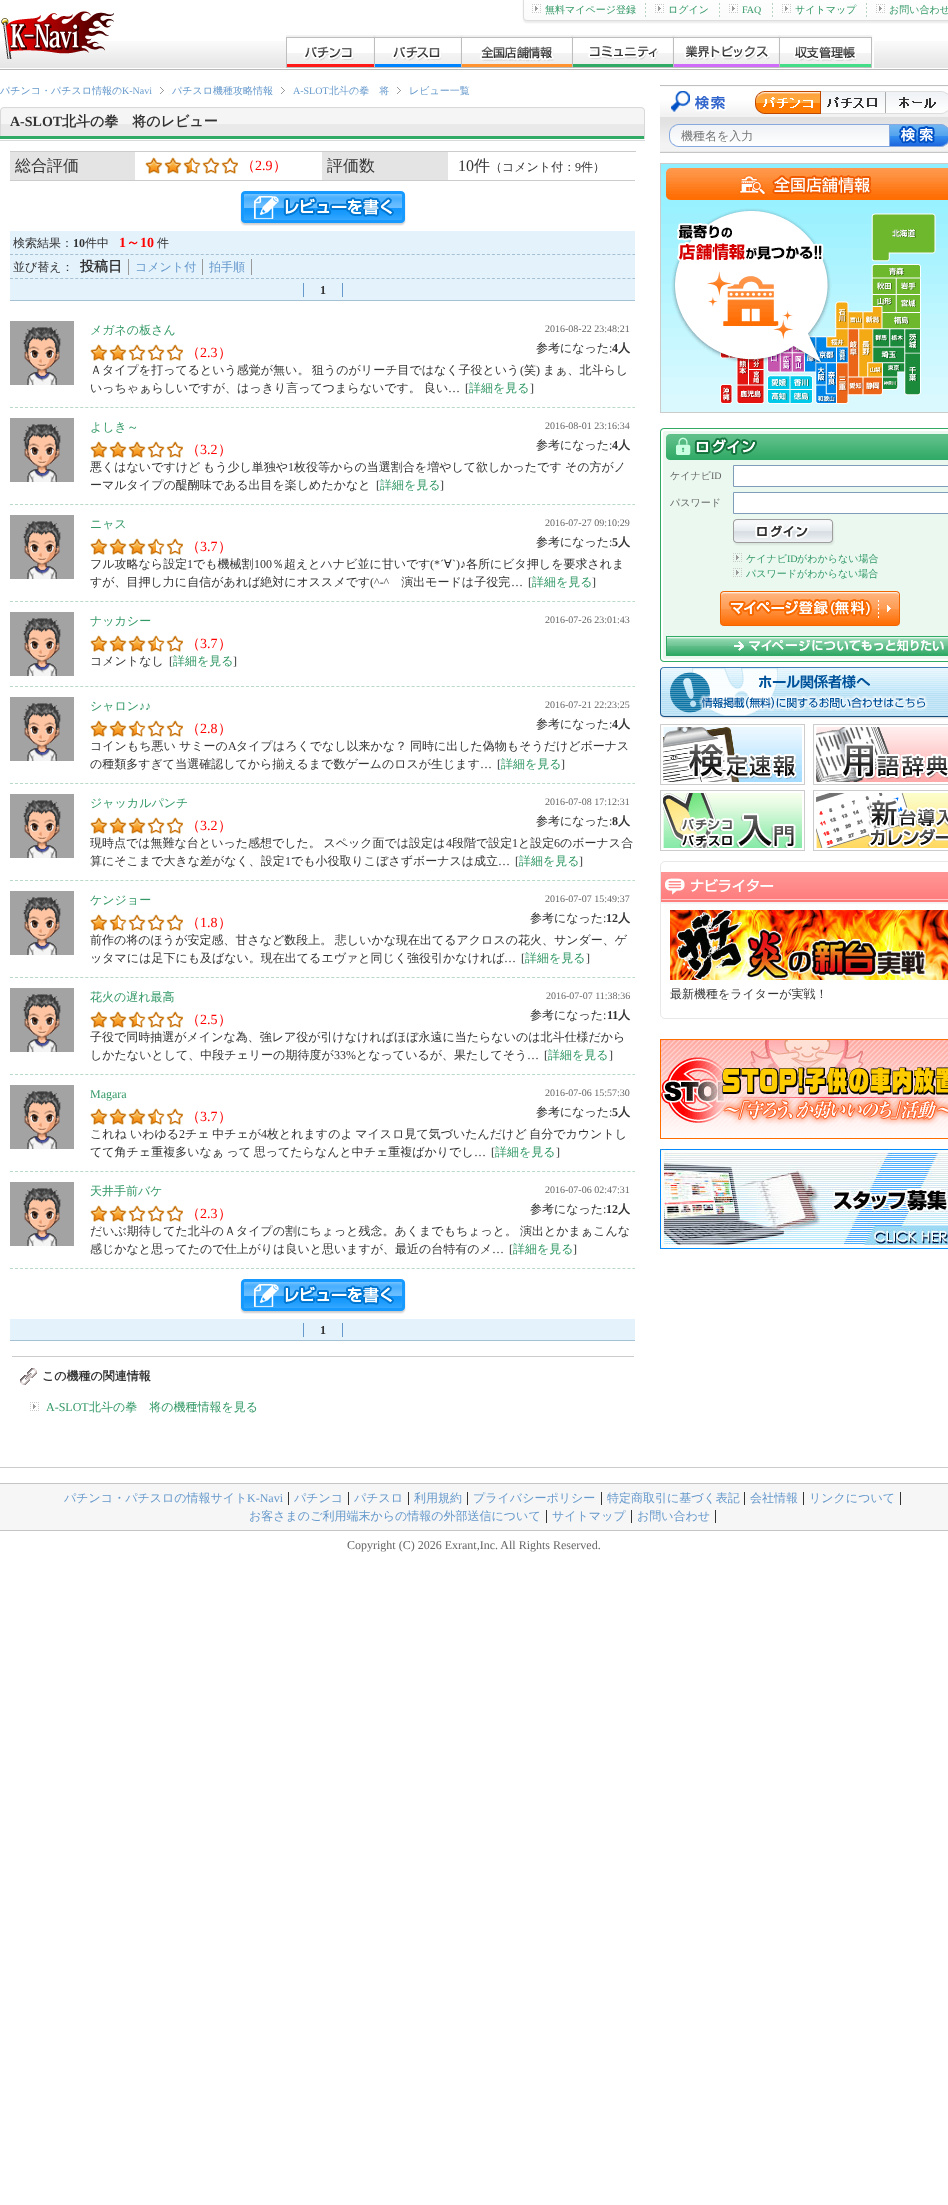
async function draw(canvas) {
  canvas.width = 948;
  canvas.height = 2205;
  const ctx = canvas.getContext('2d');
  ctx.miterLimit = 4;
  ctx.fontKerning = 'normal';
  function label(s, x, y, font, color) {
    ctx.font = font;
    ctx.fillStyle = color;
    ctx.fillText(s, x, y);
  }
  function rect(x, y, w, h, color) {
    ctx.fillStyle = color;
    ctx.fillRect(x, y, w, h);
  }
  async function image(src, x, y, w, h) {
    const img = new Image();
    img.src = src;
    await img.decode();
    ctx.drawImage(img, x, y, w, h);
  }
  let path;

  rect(0, 0, 948, 2205, '#fff');
  await image('assets/img1.png', 0, 41, 948, 29);
  await image('assets/img2.png', 522, 0, 426, 24);
  await image('assets/img3.png', 532, 4, 9, 9);
  label('無料マイページ登録', 545, 13, '500 10px WenQuanYi Zen Hei', '#396');
  await image('assets/img4.png', 645, 3, 1, 14);
  await image('assets/img3.png', 655, 4, 9, 9);
  label('ログイン', 668, 13, '500 10px WenQuanYi Zen Hei', '#396');
  await image('assets/img4.png', 719, 3, 1, 14);
  await image('assets/img3.png', 729, 4, 9, 9);
  label('FAQ', 742, 13, '10px Liberation Serif', '#396');
  await image('assets/img4.png', 772, 3, 1, 14);
  await image('assets/img3.png', 782, 4, 9, 9);
  label('サイトマップ', 795, 13, '500 10px WenQuanYi Zen Hei', '#396');
  await image('assets/img4.png', 866, 3, 1, 14);
  await image('assets/img3.png', 876, 4, 9, 9);
  label('お問い合わせ', 889, 13, '500 10px WenQuanYi Zen Hei', '#396');
  await image('assets/img5.png', 1, 11, 113, 48);
  await image('assets/img6.png', 286, 35, 588, 33);
  await image('assets/img7.png', 305, 46, 47, 12);
  await image('assets/img8.png', 393, 46, 47, 12);
  await image('assets/img9.png', 481, 46, 71, 13);
  await image('assets/img10.png', 590, 46, 67, 11);
  await image('assets/img11.png', 686, 45, 82, 13);
  await image('assets/img12.png', 795, 46, 60, 13);
  rect(0, 1467, 948, 1, '#ccc');
  await image('assets/img13.png', 160, 87, 4, 7);
  label('パチンコ・パチスロ情報の', 0, 94, '500 10px WenQuanYi Zen Hei', '#69c');
  label('K-Navi', 122, 94, '10px Liberation Serif', '#69c');
  await image('assets/img13.png', 281, 87, 4, 7);
  label('パチスロ機種攻略情報', 172, 94, '500 10px WenQuanYi Zen Hei', '#69c');
  await image('assets/img13.png', 397, 87, 4, 7);
  label('A-SLOT', 293, 94, '10px Liberation Serif', '#69c');
  label('北斗の拳　将', 329, 94, '500 10px WenQuanYi Zen Hei', '#69c');
  label('レビュー一覧', 409, 94, '500 10px WenQuanYi Zen Hei', '#69c');
  await image('assets/img14.png', 0, 107, 645, 29);
  await image('assets/img15.png', 0, 136, 645, 5);
  label('A-SLOT', 10, 126, 'bold 14px Liberation Serif', '#333');
  label('北斗の拳　将のレビュー', 62, 126, 'bold 14px WenQuanYi Zen Hei', '#333');
  rect(10, 151, 626, 1, '#ccc');
  rect(10, 180, 625, 1, '#ccc');
  rect(10, 152, 125, 28, '#e4e4e4');
  label('総合評価', 15, 171, '500 16px WenQuanYi Zen Hei', '#333');
  await image('assets/img16.png', 145, 157, 93, 17);
  label('（', 241, 170, '500 14px WenQuanYi Zen Hei', '#f00');
  label('2.9', 255, 170, '14px Liberation Serif', '#f00');
  label('）', 273, 170, '500 14px WenQuanYi Zen Hei', '#f00');
  rect(322, 152, 126, 28, '#e4e4e4');
  label('評価数', 327, 171, '500 16px WenQuanYi Zen Hei', '#333');
  label('10', 458, 171, '16px Liberation Serif', '#333');
  label('件', 474, 171, '500 16px WenQuanYi Zen Hei', '#333');
  label('（コメント付：', 490, 171, '500 12px WenQuanYi Zen Hei', '#333');
  label('9', 575, 171, '12px Liberation Serif', '#333');
  label('件）', 581, 171, '500 12px WenQuanYi Zen Hei', '#333');
  await image('assets/img17.png', 240, 191, 166, 35);
  rect(10, 231, 625, 69, '#e4f2fc');
  path = new Path2D('M10 254.5H635');
  ctx.strokeStyle = '#a6c1d4';
  ctx.setLineDash([3, 2.02]);
  ctx.stroke(path);
  label('検索結果：', 13, 247, '500 12px WenQuanYi Zen Hei', '#333');
  label('10', 73, 247, 'bold 12px Liberation Serif', '#333');
  label('件中', 85, 247, '500 12px WenQuanYi Zen Hei', '#333');
  label('1', 119, 247, 'bold 14px Liberation Serif', '#f00');
  label('～', 126, 247, 'bold 14px WenQuanYi Zen Hei', '#f00');
  label('10', 140, 247, 'bold 14px Liberation Serif', '#f00');
  label('件', 157, 247, '500 12px WenQuanYi Zen Hei', '#333');
  path = new Path2D('M10 278.5H635');
  ctx.stroke(path);
  label('並び替え：', 13, 271, '500 12px WenQuanYi Zen Hei', '#333');
  rect(128, 259, 1, 16, '#999');
  label('投稿日', 80, 271, 'bold 14px WenQuanYi Zen Hei', '#333');
  rect(202, 259, 1, 16, '#999');
  label('コメント付', 135, 271, '500 12px WenQuanYi Zen Hei', '#69c');
  rect(251, 259, 1, 16, '#999');
  label('拍手順', 209, 271, '500 12px WenQuanYi Zen Hei', '#69c');
  rect(10, 300, 625, 1, '#a6c1d4');
  rect(342, 283, 1, 14, '#69c');
  rect(303, 283, 1, 14, '#69c');
  label('1', 320, 294, 'bold 12px Liberation Serif', '#333');
  path = new Path2D('M10 407.5H635');
  ctx.strokeStyle = '#b9d9c9';
  ctx.stroke(path);
  await image('assets/img18.png', 10, 321, 64, 64);
  label('メガネの板さん', 90, 334, '500 12px WenQuanYi Zen Hei', '#396');
  label('2016-08-22 23:48:21', 545, 332, '10px Liberation Serif', '#666');
  await image('assets/img19.png', 90, 344, 93, 17);
  label('（', 186, 357, '500 14px WenQuanYi Zen Hei', '#f00');
  label('2.3', 200, 357, '14px Liberation Serif', '#f00');
  label('）', 218, 357, '500 14px WenQuanYi Zen Hei', '#f00');
  label('参考になった', 536, 352, '500 12px WenQuanYi Zen Hei', '#333');
  label(':', 609, 352, '12px Liberation Serif', '#333');
  label('4', 612, 352, 'bold 12px Liberation Serif', '#333');
  label('人', 618, 352, 'bold 12px WenQuanYi Zen Hei', '#333');
  label('Ａタイプを打ってるという感覚が無い。', 90, 374, '500 12px WenQuanYi Zen Hei', '#333');
  label('狙うのがリーチ目ではなく子役という', 312, 374, '500 12px WenQuanYi Zen Hei', '#333');
  label('(', 520, 374, '12px Liberation Serif', '#333');
  label('笑', 524, 374, '500 12px WenQuanYi Zen Hei', '#333');
  label(')', 536, 374, '12px Liberation Serif', '#333');
  label('まぁ、北斗らし', 543, 374, '500 12px WenQuanYi Zen Hei', '#333');
  label('いっちゃぁらしいですが、はっきり言ってつまらないです。', 90, 392, '500 12px WenQuanYi Zen Hei', '#333');
  label('良い', 424, 392, '500 12px WenQuanYi Zen Hei', '#333');
  label('…', 448, 392, '12px Liberation Serif', '#333');
  label('[', 465, 392, '12px Liberation Serif', '#333');
  label('詳細を見る', 469, 392, '500 12px WenQuanYi Zen Hei', '#396');
  label(']', 530, 392, '12px Liberation Serif', '#333');
  path = new Path2D('M10 504.5H635');
  ctx.stroke(path);
  await image('assets/img18.png', 10, 418, 64, 64);
  label('よしき～', 90, 431, '500 12px WenQuanYi Zen Hei', '#396');
  label('2016-08-01 23:16:34', 545, 429, '10px Liberation Serif', '#666');
  await image('assets/img20.png', 90, 441, 93, 17);
  label('（', 186, 454, '500 14px WenQuanYi Zen Hei', '#f00');
  label('3.2', 200, 454, '14px Liberation Serif', '#f00');
  label('）', 218, 454, '500 14px WenQuanYi Zen Hei', '#f00');
  label('参考になった', 536, 449, '500 12px WenQuanYi Zen Hei', '#333');
  label(':', 609, 449, '12px Liberation Serif', '#333');
  label('4', 612, 449, 'bold 12px Liberation Serif', '#333');
  label('人', 618, 449, 'bold 12px WenQuanYi Zen Hei', '#333');
  ctx.wordSpacing = '-1px';
  label('悪くはないですけど もう少し単独や', 90, 471, '500 12px WenQuanYi Zen Hei', '#333');
  ctx.wordSpacing = '0px';
  label('1', 288, 471, '12px Liberation Serif', '#333');
  label('枚役等からの当選割合を増やして欲しかったです', 294, 471, '500 12px WenQuanYi Zen Hei', '#333');
  label('その方がノ', 565, 471, '500 12px WenQuanYi Zen Hei', '#333');
  label('ーマルタイプの醍醐味である出目を楽しめたかなと', 90, 489, '500 12px WenQuanYi Zen Hei', '#333');
  label('[', 376, 489, '12px Liberation Serif', '#333');
  label('詳細を見る', 380, 489, '500 12px WenQuanYi Zen Hei', '#396');
  label(']', 440, 489, '12px Liberation Serif', '#333');
  path = new Path2D('M10 601.5H635');
  ctx.stroke(path);
  await image('assets/img18.png', 10, 515, 64, 64);
  label('ニャス', 90, 528, '500 12px WenQuanYi Zen Hei', '#396');
  label('2016-07-27 09:10:29', 545, 526, '10px Liberation Serif', '#666');
  await image('assets/img21.png', 90, 538, 93, 17);
  label('（', 186, 551, '500 14px WenQuanYi Zen Hei', '#f00');
  label('3.7', 200, 551, '14px Liberation Serif', '#f00');
  label('）', 218, 551, '500 14px WenQuanYi Zen Hei', '#f00');
  label('参考になった', 536, 546, '500 12px WenQuanYi Zen Hei', '#333');
  label(':', 609, 546, '12px Liberation Serif', '#333');
  label('5', 612, 546, 'bold 12px Liberation Serif', '#333');
  label('人', 618, 546, 'bold 12px WenQuanYi Zen Hei', '#333');
  label('フル攻略なら設定', 90, 568, '500 12px WenQuanYi Zen Hei', '#333');
  label('1', 187, 568, '12px Liberation Serif', '#333');
  label('でも機械割', 193, 568, '500 12px WenQuanYi Zen Hei', '#333');
  label('100', 254, 568, '12px Liberation Serif', '#333');
  label('％超えとハナビ並に甘いです', 272, 568, '500 12px WenQuanYi Zen Hei', '#333');
  label('(*´', 430, 568, '12px Liberation Serif', '#333');
  label('∀', 444, 568, '500 12px WenQuanYi Zen Hei', '#333');
  label('`)♪', 452, 568, '12px Liberation Serif', '#333');
  label('各所にビタ押しを要求されま', 466, 568, '500 12px WenQuanYi Zen Hei', '#333');
  label('すが、目押し力に自信があれば絶対にオススメです', 90, 586, '500 12px WenQuanYi Zen Hei', '#333');
  label('(^-^', 370, 586, '12px Liberation Serif', '#333');
  label('ゞ演出モードは子役完', 389, 586, '500 12px WenQuanYi Zen Hei', '#333');
  label('…', 511, 586, '12px Liberation Serif', '#333');
  label('[', 528, 586, '12px Liberation Serif', '#333');
  label('詳細を見る', 532, 586, '500 12px WenQuanYi Zen Hei', '#396');
  label(']', 592, 586, '12px Liberation Serif', '#333');
  path = new Path2D('M10 686.5H635');
  ctx.stroke(path);
  await image('assets/img18.png', 10, 612, 64, 64);
  label('ナッカシー', 90, 625, '500 12px WenQuanYi Zen Hei', '#396');
  label('2016-07-26 23:01:43', 545, 623, '10px Liberation Serif', '#666');
  await image('assets/img21.png', 90, 635, 93, 17);
  label('（', 186, 648, '500 14px WenQuanYi Zen Hei', '#f00');
  label('3.7', 200, 648, '14px Liberation Serif', '#f00');
  label('）', 218, 648, '500 14px WenQuanYi Zen Hei', '#f00');
  label('コメントなし', 90, 665, '500 12px WenQuanYi Zen Hei', '#333');
  label('[', 169, 665, '12px Liberation Serif', '#333');
  label('詳細を見る', 173, 665, '500 12px WenQuanYi Zen Hei', '#396');
  label(']', 233, 665, '12px Liberation Serif', '#333');
  path = new Path2D('M10 783.5H635');
  ctx.stroke(path);
  await image('assets/img18.png', 10, 697, 64, 64);
  label('シャロン', 90, 710, '500 12px WenQuanYi Zen Hei', '#396');
  label('♪♪', 139, 710, '12px Liberation Serif', '#396');
  label('2016-07-21 22:23:25', 545, 708, '10px Liberation Serif', '#666');
  await image('assets/img16.png', 90, 720, 93, 17);
  label('（', 186, 733, '500 14px WenQuanYi Zen Hei', '#f00');
  label('2.8', 200, 733, '14px Liberation Serif', '#f00');
  label('）', 218, 733, '500 14px WenQuanYi Zen Hei', '#f00');
  label('参考になった', 536, 728, '500 12px WenQuanYi Zen Hei', '#333');
  label(':', 609, 728, '12px Liberation Serif', '#333');
  label('4', 612, 728, 'bold 12px Liberation Serif', '#333');
  label('人', 618, 728, 'bold 12px WenQuanYi Zen Hei', '#333');
  label('コインもち悪い', 90, 750, '500 12px WenQuanYi Zen Hei', '#333');
  label('サミーの', 179, 750, '500 12px WenQuanYi Zen Hei', '#333');
  label('A', 228, 750, '12px Liberation Serif', '#333');
  label('タイプはろくでなし以来かな？', 236, 750, '500 12px WenQuanYi Zen Hei', '#333');
  label('同時に出した偽物もそうだけどボーナス', 410, 750, '500 12px WenQuanYi Zen Hei', '#333');
  label('の種類多すぎて当選確認してから揃えるまで数ゲームのロスが生じます', 90, 768, '500 12px WenQuanYi Zen Hei', '#333');
  label('…', 480, 768, '12px Liberation Serif', '#333');
  label('[', 497, 768, '12px Liberation Serif', '#333');
  label('詳細を見る', 501, 768, '500 12px WenQuanYi Zen Hei', '#396');
  label(']', 561, 768, '12px Liberation Serif', '#333');
  path = new Path2D('M10 880.5H635');
  ctx.stroke(path);
  await image('assets/img18.png', 10, 794, 64, 64);
  label('ジャッカルパンチ', 90, 807, '500 12px WenQuanYi Zen Hei', '#396');
  label('2016-07-08 17:12:31', 545, 805, '10px Liberation Serif', '#666');
  await image('assets/img20.png', 90, 817, 93, 17);
  label('（', 186, 830, '500 14px WenQuanYi Zen Hei', '#f00');
  label('3.2', 200, 830, '14px Liberation Serif', '#f00');
  label('）', 218, 830, '500 14px WenQuanYi Zen Hei', '#f00');
  label('参考になった', 536, 825, '500 12px WenQuanYi Zen Hei', '#333');
  label(':', 609, 825, '12px Liberation Serif', '#333');
  label('8', 612, 825, 'bold 12px Liberation Serif', '#333');
  label('人', 618, 825, 'bold 12px WenQuanYi Zen Hei', '#333');
  ctx.wordSpacing = '-1px';
  label('現時点では無難な台といった感想でした。 スペック面では設定は', 90, 847, '500 12px WenQuanYi Zen Hei', '#333');
  ctx.wordSpacing = '0px';
  label('4', 446, 847, '12px Liberation Serif', '#333');
  label('段階で設定', 452, 847, '500 12px WenQuanYi Zen Hei', '#333');
  label('1', 512, 847, '12px Liberation Serif', '#333');
  label('と設定', 518, 847, '500 12px WenQuanYi Zen Hei', '#333');
  label('6', 554, 847, '12px Liberation Serif', '#333');
  label('のボーナス合', 560, 847, '500 12px WenQuanYi Zen Hei', '#333');
  label('算にそこまで大きな差がなく、設定', 90, 865, '500 12px WenQuanYi Zen Hei', '#333');
  label('1', 285, 865, '12px Liberation Serif', '#333');
  label('でも小役取りこぼさずボーナスは成立', 291, 865, '500 12px WenQuanYi Zen Hei', '#333');
  label('…', 498, 865, '12px Liberation Serif', '#333');
  label('[', 515, 865, '12px Liberation Serif', '#333');
  label('詳細を見る', 519, 865, '500 12px WenQuanYi Zen Hei', '#396');
  label(']', 579, 865, '12px Liberation Serif', '#333');
  path = new Path2D('M10 977.5H635');
  ctx.stroke(path);
  await image('assets/img18.png', 10, 891, 64, 64);
  label('ケンジョー', 90, 904, '500 12px WenQuanYi Zen Hei', '#396');
  label('2016-07-07 15:49:37', 545, 902, '10px Liberation Serif', '#666');
  await image('assets/img22.png', 90, 914, 93, 17);
  label('（', 186, 927, '500 14px WenQuanYi Zen Hei', '#f00');
  label('1.8', 200, 927, '14px Liberation Serif', '#f00');
  label('）', 218, 927, '500 14px WenQuanYi Zen Hei', '#f00');
  label('参考になった', 530, 922, '500 12px WenQuanYi Zen Hei', '#333');
  label(':', 603, 922, '12px Liberation Serif', '#333');
  label('12', 606, 922, 'bold 12px Liberation Serif', '#333');
  label('人', 618, 922, 'bold 12px WenQuanYi Zen Hei', '#333');
  ctx.wordSpacing = '-1px';
  label('前作の将のほうが安定感、甘さなど数段上。 悲しいかな現在出てるアクロスの花火、サンダー、ゲ', 90, 944, '500 12px WenQuanYi Zen Hei', '#333');
  ctx.wordSpacing = '0px';
  label('ッタマには足下にも及ばない。現在出てるエヴァと同じく強役引かなければ', 90, 962, '500 12px WenQuanYi Zen Hei', '#333');
  label('…', 504, 962, '12px Liberation Serif', '#333');
  label('[', 521, 962, '12px Liberation Serif', '#333');
  label('詳細を見る', 525, 962, '500 12px WenQuanYi Zen Hei', '#396');
  label(']', 586, 962, '12px Liberation Serif', '#333');
  path = new Path2D('M10 1074.5H635');
  ctx.stroke(path);
  await image('assets/img18.png', 10, 988, 64, 64);
  label('花火の遅れ最高', 90, 1001, '500 12px WenQuanYi Zen Hei', '#396');
  label('2016-07-07 11:38:36', 546, 999, '10px Liberation Serif', '#666');
  await image('assets/img16.png', 90, 1011, 93, 17);
  label('（', 186, 1024, '500 14px WenQuanYi Zen Hei', '#f00');
  label('2.5', 200, 1024, '14px Liberation Serif', '#f00');
  label('）', 218, 1024, '500 14px WenQuanYi Zen Hei', '#f00');
  label('参考になった', 530, 1019, '500 12px WenQuanYi Zen Hei', '#333');
  label(':', 603, 1019, '12px Liberation Serif', '#333');
  label('11', 607, 1019, 'bold 12px Liberation Serif', '#333');
  label('人', 618, 1019, 'bold 12px WenQuanYi Zen Hei', '#333');
  label('子役で同時抽選がメインな為、強レア役が引けなければほぼ永遠に当たらないのは北斗仕様だから', 90, 1041, '500 12px WenQuanYi Zen Hei', '#333');
  label('しかたないとして、中段チェリーの期待度が', 90, 1059, '500 12px WenQuanYi Zen Hei', '#333');
  label('33%', 334, 1059, '12px Liberation Serif', '#333');
  label('となっているが、果たしてそう', 356, 1059, '500 12px WenQuanYi Zen Hei', '#333');
  label('…', 527, 1059, '12px Liberation Serif', '#333');
  label('[', 544, 1059, '12px Liberation Serif', '#333');
  label('詳細を見る', 548, 1059, '500 12px WenQuanYi Zen Hei', '#396');
  label(']', 609, 1059, '12px Liberation Serif', '#333');
  path = new Path2D('M10 1171.5H635');
  ctx.stroke(path);
  await image('assets/img18.png', 10, 1085, 64, 64);
  label('Magara', 90, 1098, '12px Liberation Serif', '#396');
  label('2016-07-06 15:57:30', 545, 1096, '10px Liberation Serif', '#666');
  await image('assets/img21.png', 90, 1108, 93, 17);
  label('（', 186, 1121, '500 14px WenQuanYi Zen Hei', '#f00');
  label('3.7', 200, 1121, '14px Liberation Serif', '#f00');
  label('）', 218, 1121, '500 14px WenQuanYi Zen Hei', '#f00');
  label('参考になった', 536, 1116, '500 12px WenQuanYi Zen Hei', '#333');
  label(':', 609, 1116, '12px Liberation Serif', '#333');
  label('5', 612, 1116, 'bold 12px Liberation Serif', '#333');
  label('人', 618, 1116, 'bold 12px WenQuanYi Zen Hei', '#333');
  label('これね', 90, 1138, '500 12px WenQuanYi Zen Hei', '#333');
  label('いわゆる', 130, 1138, '500 12px WenQuanYi Zen Hei', '#333');
  label('2', 179, 1138, '12px Liberation Serif', '#333');
  ctx.wordSpacing = '-1px';
  label('チェ 中チェが', 185, 1138, '500 12px WenQuanYi Zen Hei', '#333');
  ctx.wordSpacing = '0px';
  label('4', 261, 1138, '12px Liberation Serif', '#333');
  ctx.wordSpacing = '-1px';
  label('枚とれますのよ マイスロ見て気づいたんだけど 自分でカウントし', 267, 1138, '500 12px WenQuanYi Zen Hei', '#333');
  label('てて角チェ重複多いなぁ って 思ってたらなんと中チェ重複ばかりでし', 90, 1156, '500 12px WenQuanYi Zen Hei', '#333');
  ctx.wordSpacing = '0px';
  label('…', 474, 1156, '12px Liberation Serif', '#333');
  label('[', 491, 1156, '12px Liberation Serif', '#333');
  label('詳細を見る', 495, 1156, '500 12px WenQuanYi Zen Hei', '#396');
  label(']', 556, 1156, '12px Liberation Serif', '#333');
  path = new Path2D('M10 1268.5H635');
  ctx.stroke(path);
  await image('assets/img18.png', 10, 1182, 64, 64);
  label('天井手前バケ', 90, 1195, '500 12px WenQuanYi Zen Hei', '#396');
  label('2016-07-06 02:47:31', 545, 1193, '10px Liberation Serif', '#666');
  await image('assets/img19.png', 90, 1205, 93, 17);
  label('（', 186, 1218, '500 14px WenQuanYi Zen Hei', '#f00');
  label('2.3', 200, 1218, '14px Liberation Serif', '#f00');
  label('）', 218, 1218, '500 14px WenQuanYi Zen Hei', '#f00');
  label('参考になった', 530, 1213, '500 12px WenQuanYi Zen Hei', '#333');
  label(':', 603, 1213, '12px Liberation Serif', '#333');
  label('12', 606, 1213, 'bold 12px Liberation Serif', '#333');
  label('人', 618, 1213, 'bold 12px WenQuanYi Zen Hei', '#333');
  label('だいぶ期待してた北斗のＡタイプの割にちょっと残念。あくまでもちょっと。', 90, 1235, '500 12px WenQuanYi Zen Hei', '#333');
  label('演出とかまぁこんな', 520, 1235, '500 12px WenQuanYi Zen Hei', '#333');
  label('感じかなと思ってたので仕上がりは良いと思いますが、最近の台特有のメ', 90, 1253, '500 12px WenQuanYi Zen Hei', '#333');
  label('…', 492, 1253, '12px Liberation Serif', '#333');
  label('[', 509, 1253, '12px Liberation Serif', '#333');
  label('詳細を見る', 513, 1253, '500 12px WenQuanYi Zen Hei', '#396');
  label(']', 573, 1253, '12px Liberation Serif', '#333');
  await image('assets/img17.png', 240, 1279, 166, 35);
  rect(10, 1319, 625, 21, '#e4f2fc');
  rect(10, 1340, 625, 1, '#a6c1d4');
  rect(342, 1323, 1, 14, '#69c');
  rect(303, 1323, 1, 14, '#69c');
  label('1', 320, 1334, 'bold 12px Liberation Serif', '#333');
  rect(12, 1356, 622, 1, '#ccc');
  await image('assets/img23.png', 20, 1368, 17, 17);
  label('この機種の関連情報', 42, 1380, 'bold 12px WenQuanYi Zen Hei', '#333');
  await image('assets/img24.png', 30, 1402, 9, 9);
  label('A-SLOT', 46, 1411, '12px Liberation Serif', '#396');
  label('北斗の拳　将の機種情報を見る', 89, 1411, '500 12px WenQuanYi Zen Hei', '#396');
  await image('assets/img25.png', 660, 85, 288, 68);
  await image('assets/img26.png', 755, 91, 193, 23);
  label('機種名を入力', 681, 140, '500 12px WenQuanYi Zen Hei', '#757575');
  await image('assets/img27.png', 660, 163, 288, 250);
  await image('assets/img28.png', 660, 428, 288, 230);
  await image('assets/img29.png', 666, 434, 282, 26);
  label('ケイナビ', 670, 479, '500 10px WenQuanYi Zen Hei', '#666');
  label('ID', 711, 479, '10px Liberation Serif', '#666');
  ctx.fillStyle = '#fff';
  ctx.beginPath();
  ctx.rect(733.5, 465.5, 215, 21);
  ctx.fill();
  ctx.strokeStyle = '#7f9db9';
  ctx.setLineDash([]);
  ctx.stroke();
  label('パスワード', 670, 506, '500 10px WenQuanYi Zen Hei', '#666');
  ctx.fillStyle = '#fff';
  ctx.beginPath();
  ctx.rect(733.5, 492.5, 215, 21);
  ctx.fill();
  ctx.stroke();
  await image('assets/img30.png', 733, 519, 102, 27);
  await image('assets/img31.png', 733, 553, 9, 9);
  label('ケイナビ', 746, 562, '500 10px WenQuanYi Zen Hei', '#396');
  label('ID', 787, 562, '10px Liberation Serif', '#396');
  label('がわからない場合', 797, 562, '500 10px WenQuanYi Zen Hei', '#396');
  await image('assets/img31.png', 733, 568, 9, 9);
  label('パスワードがわからない場合', 746, 577, '500 10px WenQuanYi Zen Hei', '#396');
  await image('assets/img32.png', 720, 591, 180, 35);
  ctx.strokeStyle = '#31aa66';
  ctx.strokeRect(666.5, 636.5, 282, 19);
  await image('assets/img33.png', 667, 637, 281, 18);
  await image('assets/img34.png', 660, 658, 288, 4);
  await image('assets/img35.png', 660, 667, 288, 52);
  await image('assets/img36.png', 660, 724, 145, 61);
  await image('assets/img37.png', 813, 724, 135, 61);
  await image('assets/img38.png', 660, 790, 145, 61);
  await image('assets/img39.png', 813, 790, 135, 61);
  ctx.beginPath();
  ctx.roundRect(660.5, 861.5, 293, 157, 4.5);
  ctx.strokeStyle = '#e8e8e8';
  ctx.stroke();
  await image('assets/img40.png', 661, 872, 287, 32);
  await image('assets/img41.png', 670, 910, 278, 70);
  label('最新機種をライターが実戦！', 670, 998, '500 12px WenQuanYi Zen Hei', '#333');
  await image('assets/img42.png', 660, 1039, 288, 100);
  await image('assets/img43.png', 660, 1149, 288, 100);
  rect(0, 1484, 948, 46, '#f6f6f6');
  rect(0, 1483, 948, 1, '#c5c5c5');
  rect(0, 1530, 948, 1, '#c5c5c5');
  rect(288, 1492, 1, 13, '#333');
  label('パチンコ・パチスロの情報サイト', 64, 1502, '500 12px WenQuanYi Zen Hei', '#69c');
  label('K-Navi', 247, 1502, '12px Liberation Serif', '#69c');
  rect(348, 1492, 1, 13, '#333');
  label('パチンコ', 294, 1502, '500 12px WenQuanYi Zen Hei', '#69c');
  rect(408, 1492, 1, 13, '#333');
  label('パチスロ', 354, 1502, '500 12px WenQuanYi Zen Hei', '#69c');
  rect(467, 1492, 1, 13, '#333');
  label('利用規約', 414, 1502, '500 12px WenQuanYi Zen Hei', '#69c');
  rect(601, 1492, 1, 13, '#333');
  label('プライバシーポリシー', 473, 1502, '500 12px WenQuanYi Zen Hei', '#69c');
  rect(744, 1492, 1, 13, '#333');
  label('特定商取引に基づく表記', 607, 1502, '500 12px WenQuanYi Zen Hei', '#69c');
  rect(803, 1492, 1, 13, '#333');
  label('会社情報', 750, 1502, '500 12px WenQuanYi Zen Hei', '#69c');
  rect(900, 1492, 1, 13, '#333');
  label('リンクについて', 809, 1502, '500 12px WenQuanYi Zen Hei', '#69c');
  rect(546, 1510, 1, 13, '#333');
  label('お客さまのご利用端末からの情報の外部送信について', 249, 1520, '500 12px WenQuanYi Zen Hei', '#69c');
  rect(631, 1510, 1, 13, '#333');
  label('サイトマップ', 552, 1520, '500 12px WenQuanYi Zen Hei', '#69c');
  rect(715, 1510, 1, 13, '#333');
  label('お問い合わせ', 637, 1520, '500 12px WenQuanYi Zen Hei', '#69c');
  label('Copyright (C) 2026 Exrant,Inc. All Rights Reserved.', 347, 1549, '12px Liberation Serif', '#666');
}

draw(document.querySelector('canvas'));
